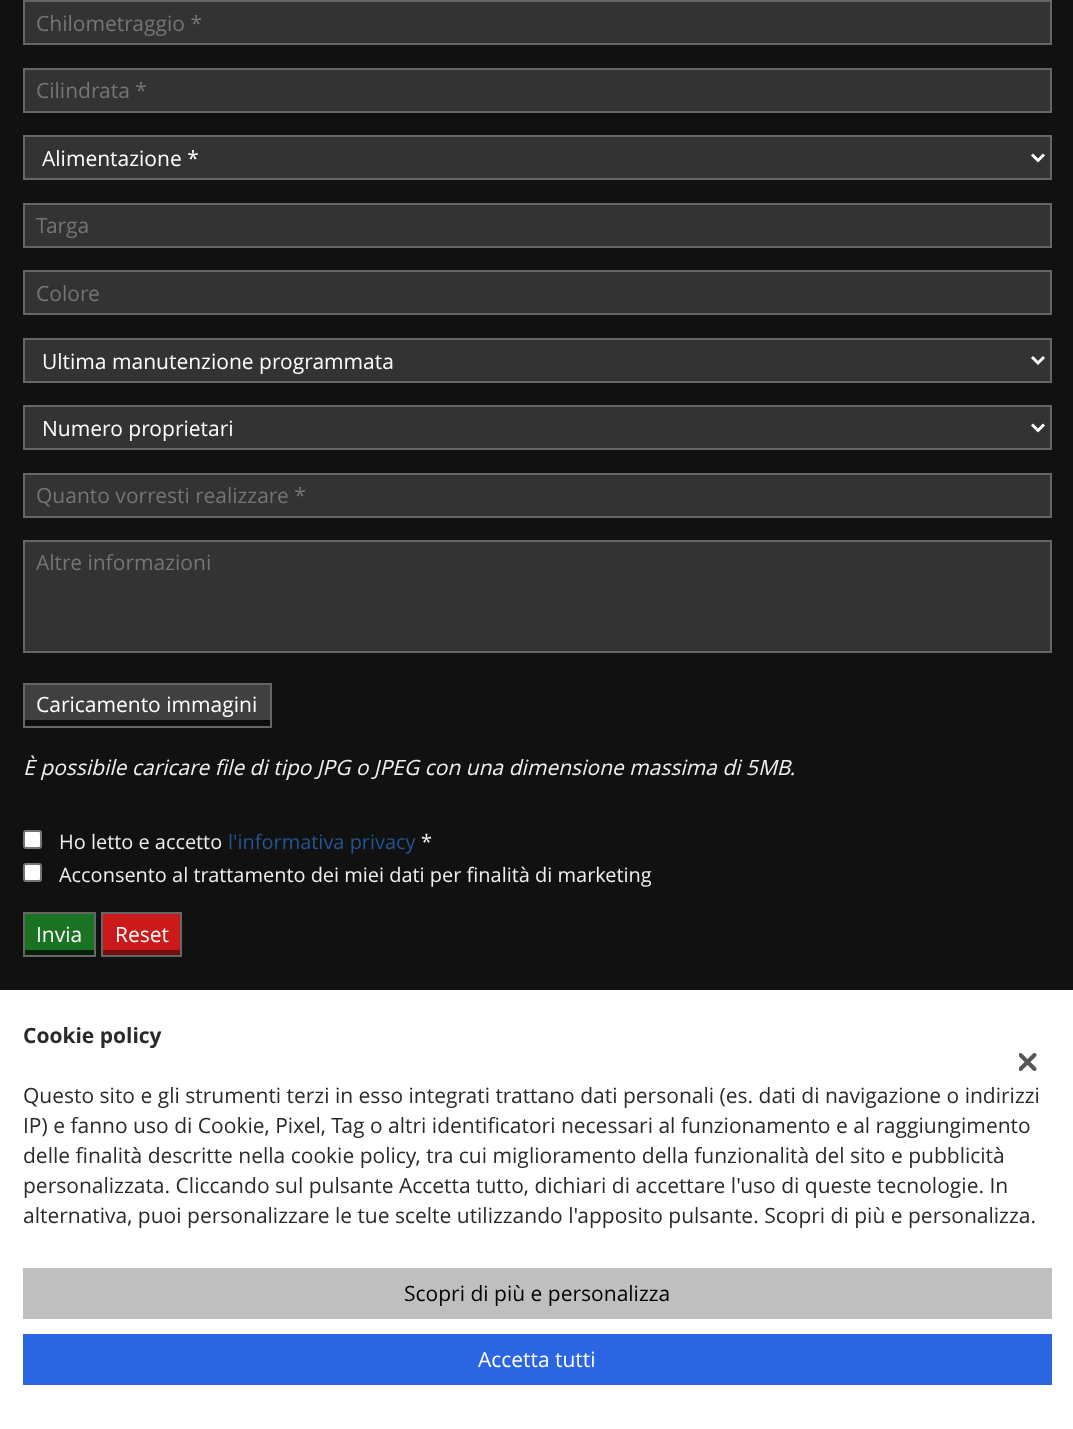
async function draw(canvas) {
  canvas.width = 1073;
  canvas.height = 1429;
  const ctx = canvas.getContext('2d');
  ctx.miterLimit = 4;
  ctx.fontKerning = 'normal';
  function label(s, x, y, font, color) {
    ctx.font = font;
    ctx.fillStyle = color;
    ctx.fillText(s, x, y);
  }
  function rect(x, y, w, h, color) {
    ctx.fillStyle = color;
    ctx.fillRect(x, y, w, h);
  }
  async function image(src, x, y, w, h) {
    const img = new Image();
    img.src = src;
    await img.decode();
    ctx.drawImage(img, x, y, w, h);
  }
  let path;

  rect(0, 0, 1073, 1429, '#111');
  ctx.fillStyle = '#333';
  ctx.beginPath();
  ctx.rect(24, 1, 1027, 43);
  ctx.fill();
  ctx.strokeStyle = '#666';
  ctx.lineWidth = 2;
  ctx.stroke();
  label('Chilometraggio *', 36, 31, '21px Open Sans', '#757575');
  ctx.fillStyle = '#333';
  ctx.beginPath();
  ctx.rect(24, 69, 1027, 43);
  ctx.fill();
  ctx.stroke();
  label('Cilindrata *', 36, 98, '21px Open Sans', '#757575');
  ctx.fillStyle = '#333';
  ctx.beginPath();
  ctx.rect(24, 136, 1027, 43);
  ctx.fill();
  ctx.stroke();
  path = new Path2D('M1032 154.5L1038 160.5L1044 154.5');
  ctx.strokeStyle = '#fff';
  ctx.lineWidth = 3;
  ctx.stroke(path);
  label('Alimentazione *', 42, 166, '21px Open Sans', '#fff');
  ctx.fillStyle = '#333';
  ctx.beginPath();
  ctx.rect(24, 204, 1027, 43);
  ctx.fill();
  ctx.strokeStyle = '#666';
  ctx.lineWidth = 2;
  ctx.stroke();
  label('Targa', 36, 233, '21px Open Sans', '#757575');
  ctx.fillStyle = '#333';
  ctx.beginPath();
  ctx.rect(24, 271, 1027, 43);
  ctx.fill();
  ctx.stroke();
  label('Colore', 36, 301, '21px Open Sans', '#757575');
  ctx.fillStyle = '#333';
  ctx.beginPath();
  ctx.rect(24, 339, 1027, 43);
  ctx.fill();
  ctx.stroke();
  path = new Path2D('M1032 357L1038 363L1044 357');
  ctx.strokeStyle = '#fff';
  ctx.lineWidth = 3;
  ctx.stroke(path);
  label('Ultima manutenzione programmata', 42, 369, '21px Open Sans', '#fff');
  ctx.fillStyle = '#333';
  ctx.beginPath();
  ctx.rect(24, 406, 1027, 43);
  ctx.fill();
  ctx.strokeStyle = '#666';
  ctx.lineWidth = 2;
  ctx.stroke();
  path = new Path2D('M1032 424.5L1038 430.5L1044 424.5');
  ctx.strokeStyle = '#fff';
  ctx.lineWidth = 3;
  ctx.stroke(path);
  label('Numero proprietari', 42, 436, '21px Open Sans', '#fff');
  ctx.fillStyle = '#333';
  ctx.beginPath();
  ctx.rect(24, 474, 1027, 43);
  ctx.fill();
  ctx.strokeStyle = '#666';
  ctx.lineWidth = 2;
  ctx.stroke();
  label('Quanto vorresti realizzare *', 36, 503, '21px Open Sans', '#757575');
  ctx.fillStyle = '#333';
  ctx.beginPath();
  ctx.rect(24, 541, 1027, 111);
  ctx.fill();
  ctx.stroke();
  label('Altre informazioni', 36, 570, '21px Open Sans', '#757575');
  rect(25, 685, 245, 35, '#404040');
  rect(24, 720, 246, 6, '#0d0d0d');
  ctx.strokeRect(24, 684, 247, 43);
  label('Caricamento immagini', 36, 712, '21px Open Sans', '#fff');
  label('È possibile caricare file di tipo JPG o JPEG con una dimensione massima di 5MB.', 23, 775, 'italic 21px Open Sans', '#f0f0f0');
  ctx.fillStyle = '#fff';
  ctx.beginPath();
  ctx.roundRect(24, 831, 17, 17, 2);
  ctx.fill();
  ctx.strokeStyle = '#767676';
  ctx.stroke();
  label('Ho letto e accetto', 59, 849, '19.95px Open Sans', '#f0f0f0');
  label('l\'informativa privacy', 228, 849, '19.95px Open Sans', '#235592');
  label('*', 421, 849, '19.95px Open Sans', '#f0f0f0');
  ctx.fillStyle = '#fff';
  ctx.beginPath();
  ctx.roundRect(24, 864, 17, 17, 2);
  ctx.fill();
  ctx.stroke();
  label('Acconsento al trattamento dei miei dati per finalità di marketing', 59, 882, '19.95px Open Sans', '#f0f0f0');
  rect(25, 914, 69, 36, '#1a7323');
  rect(24, 950, 71, 5, '#07200a');
  ctx.strokeStyle = '#666';
  ctx.strokeRect(24, 913, 71, 43);
  label('Invia', 36, 942, '21px Open Sans', '#fff');
  rect(103, 914, 77, 36, '#cc1919');
  rect(102, 950, 78, 5, '#710e0e');
  ctx.strokeRect(102, 913, 79, 43);
  label('Reset', 115, 942, '21px Open Sans', '#fff');
  rect(0, 990, 1073, 439, '#fff');
  label('Cookie policy', 23, 1043, 'bold 21px Open Sans', '#2b2929');
  label('Questo sito e gli strumenti terzi in esso integrati trattano dati personali (es. dati di navigazione o indirizzi', 23, 1103, '21px Open Sans', '#2b2929');
  label('IP) e fanno uso di Cookie, Pixel, Tag o altri identificatori necessari al funzionamento e al raggiungimento', 23, 1133, '21px Open Sans', '#2b2929');
  label('delle finalità descritte nella cookie policy, tra cui miglioramento della funzionalità del sito e pubblicità', 23, 1163, '21px Open Sans', '#2b2929');
  label('personalizzata. Cliccando sul pulsante Accetta tutto, dichiari di accettare l\'uso di queste tecnologie. In', 23, 1193, '21px Open Sans', '#2b2929');
  label('alternativa, puoi personalizzare le tue scelte utilizzando l\'apposito pulsante. Scopri di più e personalizza.', 23, 1223, '21px Open Sans', '#2b2929');
  rect(23, 1268, 1029, 51, '#bfbfbf');
  label('Scopri di più e personalizza', 404, 1301, '21px Open Sans', '#000');
  rect(23, 1334, 1029, 51, '#2c65e1');
  label('Accetta tutti', 478, 1367, '21px Open Sans', '#fff');
  await image('assets/img1.png', 1019, 1053, 18, 18);
}

draw(document.querySelector('canvas'));
